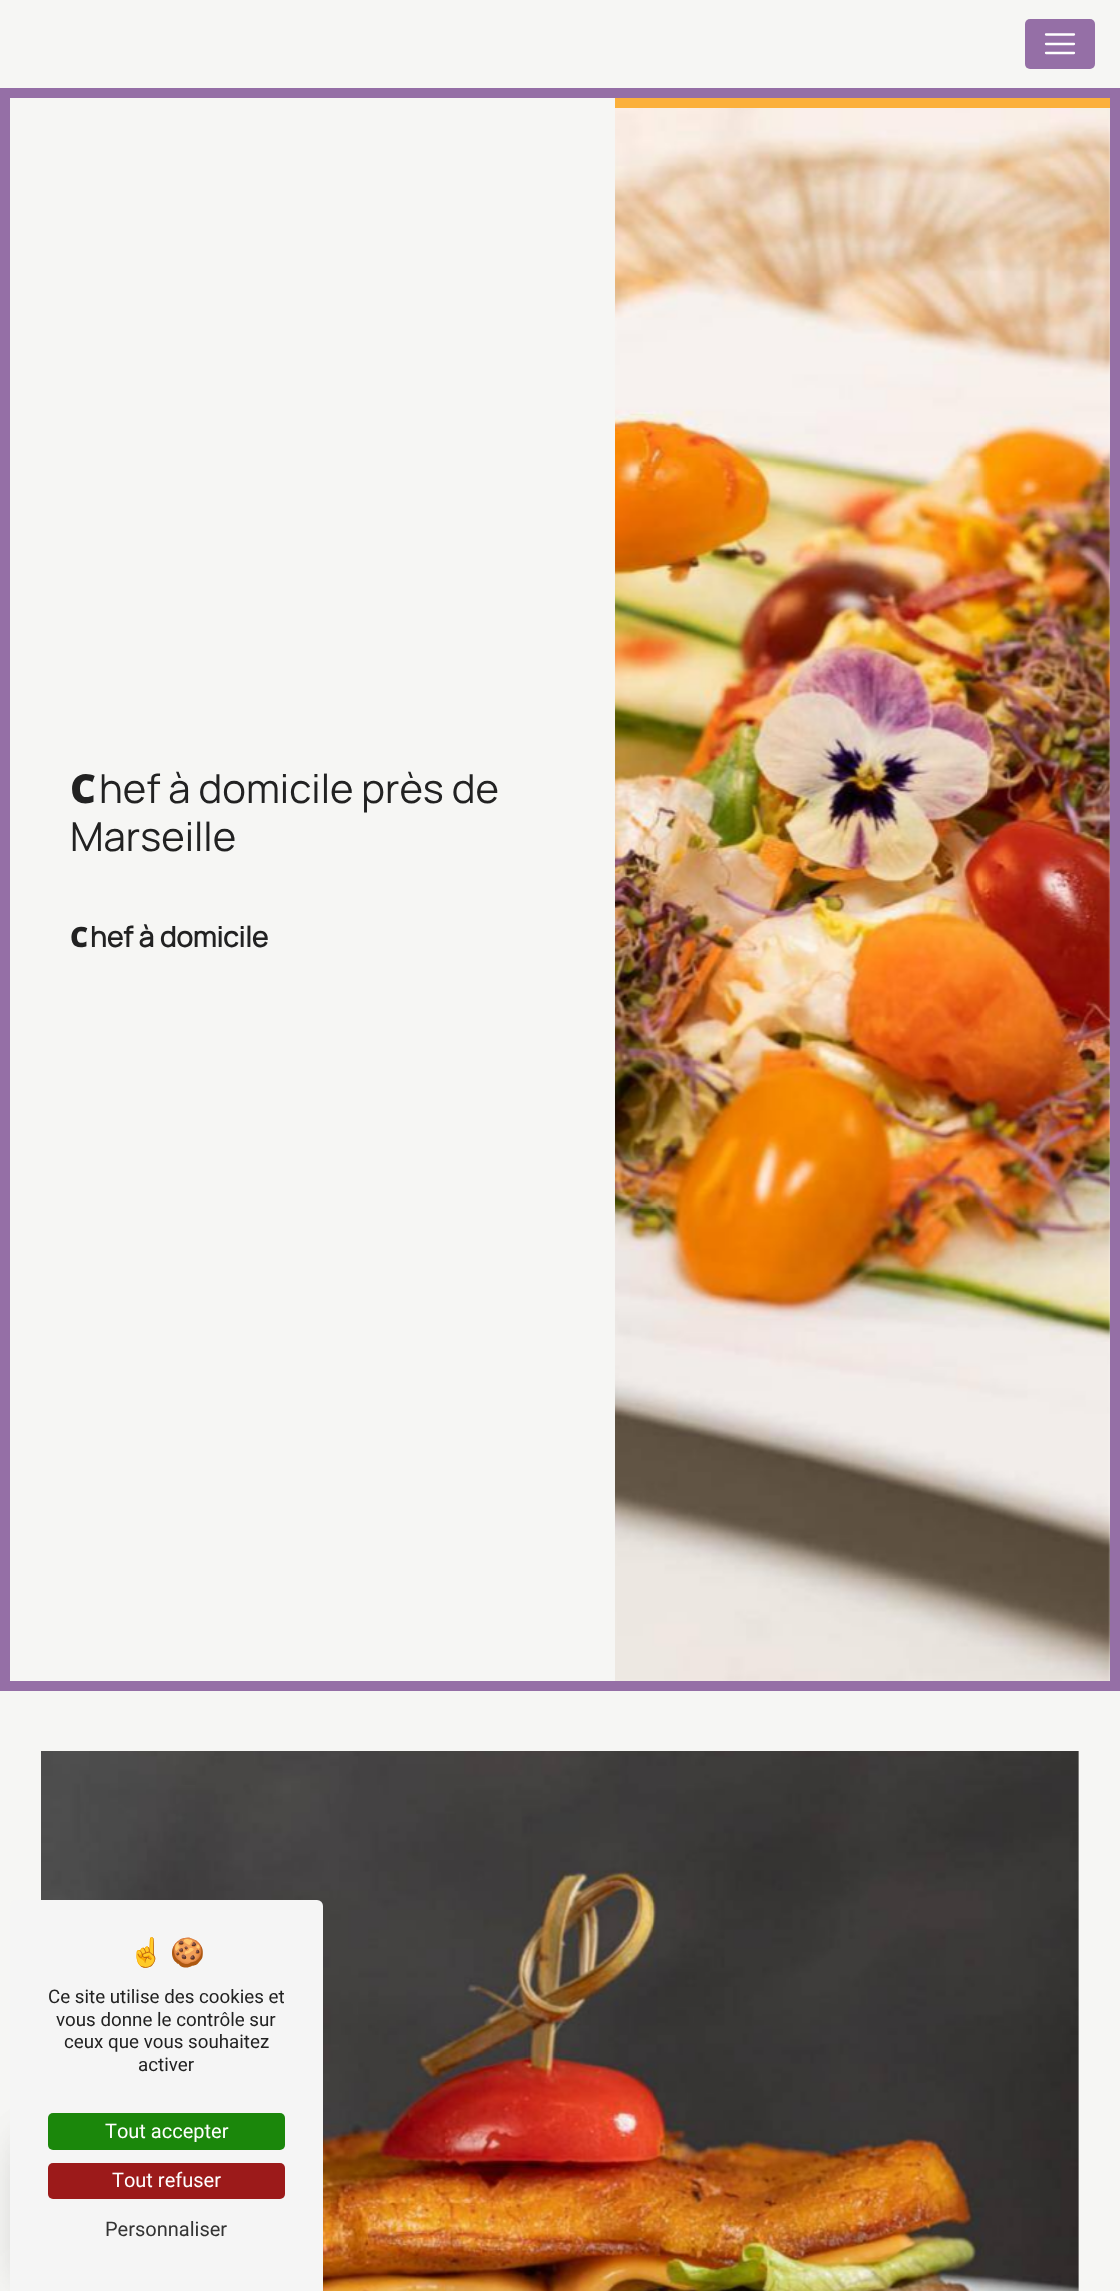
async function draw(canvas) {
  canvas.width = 1120;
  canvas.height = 2291;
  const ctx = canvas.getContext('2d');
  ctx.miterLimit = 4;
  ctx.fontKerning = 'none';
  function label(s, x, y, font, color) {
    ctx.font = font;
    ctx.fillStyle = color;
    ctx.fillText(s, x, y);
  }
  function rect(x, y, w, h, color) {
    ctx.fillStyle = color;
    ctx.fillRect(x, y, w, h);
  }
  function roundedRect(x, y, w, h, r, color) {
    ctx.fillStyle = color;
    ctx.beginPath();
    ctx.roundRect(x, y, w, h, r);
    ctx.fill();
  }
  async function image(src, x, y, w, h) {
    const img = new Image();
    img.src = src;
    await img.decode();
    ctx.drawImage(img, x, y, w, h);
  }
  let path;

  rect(0, 0, 1120, 2291, '#f6f6f4');
  roundedRect(1025, 19, 70, 50, 5, '#956fa6');
  path = new Path2D('M1046 34.5H1074M1046 44H1074M1046 53H1074');
  ctx.strokeStyle = '#fff';
  ctx.lineWidth = 2.3;
  ctx.lineCap = 'round';
  ctx.stroke(path);
  ctx.strokeStyle = '#956fa6';
  ctx.lineWidth = 10;
  ctx.strokeRect(5, 93, 1110, 1593);
  label('C', 70, 803, '900 40px Noto Sans', '#222');
  label('hef à domicile près de', 99, 803, '200 40px Manrope', '#222');
  label('Marseille', 70, 851, '200 40px Manrope', '#222');
  label('C', 70, 947, '900 28px Noto Sans', '#222');
  label('hef à domicile', 90, 947, 'bold 28px Manrope', '#222');
  await image('assets/img1.png', 615, 108, 495, 1573);
  rect(615, 98, 495, 10, '#fbb03b');
  await image('assets/img2.png', 41, 1751, 1038, 540);
  ctx.fillStyle = '#00000026';
  ctx.filter = 'blur(19px)';
  ctx.beginPath();
  ctx.roundRect(25, 2136, 238, 143, 10);
  ctx.fill();
  ctx.filter = 'none';
  ctx.fillStyle = '#0000001a';
  ctx.filter = 'blur(25px)';
  ctx.beginPath();
  ctx.roundRect(25, 2143, 238, 142, 10);
  ctx.fill();
  ctx.filter = 'none';
  ctx.fillStyle = '#f5f5f5';
  ctx.beginPath();
  ctx.roundRect(10, 1900, 313, 391, [6, 6, 0, 0]);
  ctx.fill();
  label('☝', 129, 1962, '28px Noto Color Emoji', '#222');
  label('🍪', 170, 1962, '28px Noto Color Emoji', '#222');
  label('Ce site utilise des cookies et', 48, 2003, '18.75px Roboto', '#222');
  label('vous donne le contrôle sur', 56, 2026, '18.75px Roboto', '#222');
  label('ceux que vous souhaitez', 64, 2048, '18.75px Roboto', '#222');
  label('activer', 138, 2071, '18.75px Roboto', '#222');
  roundedRect(48, 2113, 237, 37, 5, '#1b870b');
  label('Tout accepter', 105, 2138, '20px Roboto', '#fff');
  roundedRect(48, 2163, 237, 36, 5, '#9c1a1a');
  label('Tout refuser', 112, 2187, '20px Roboto', '#fff');
  label('Personnaliser', 105, 2236, '20px Roboto', '#333');
}

draw(document.querySelector('canvas'));
